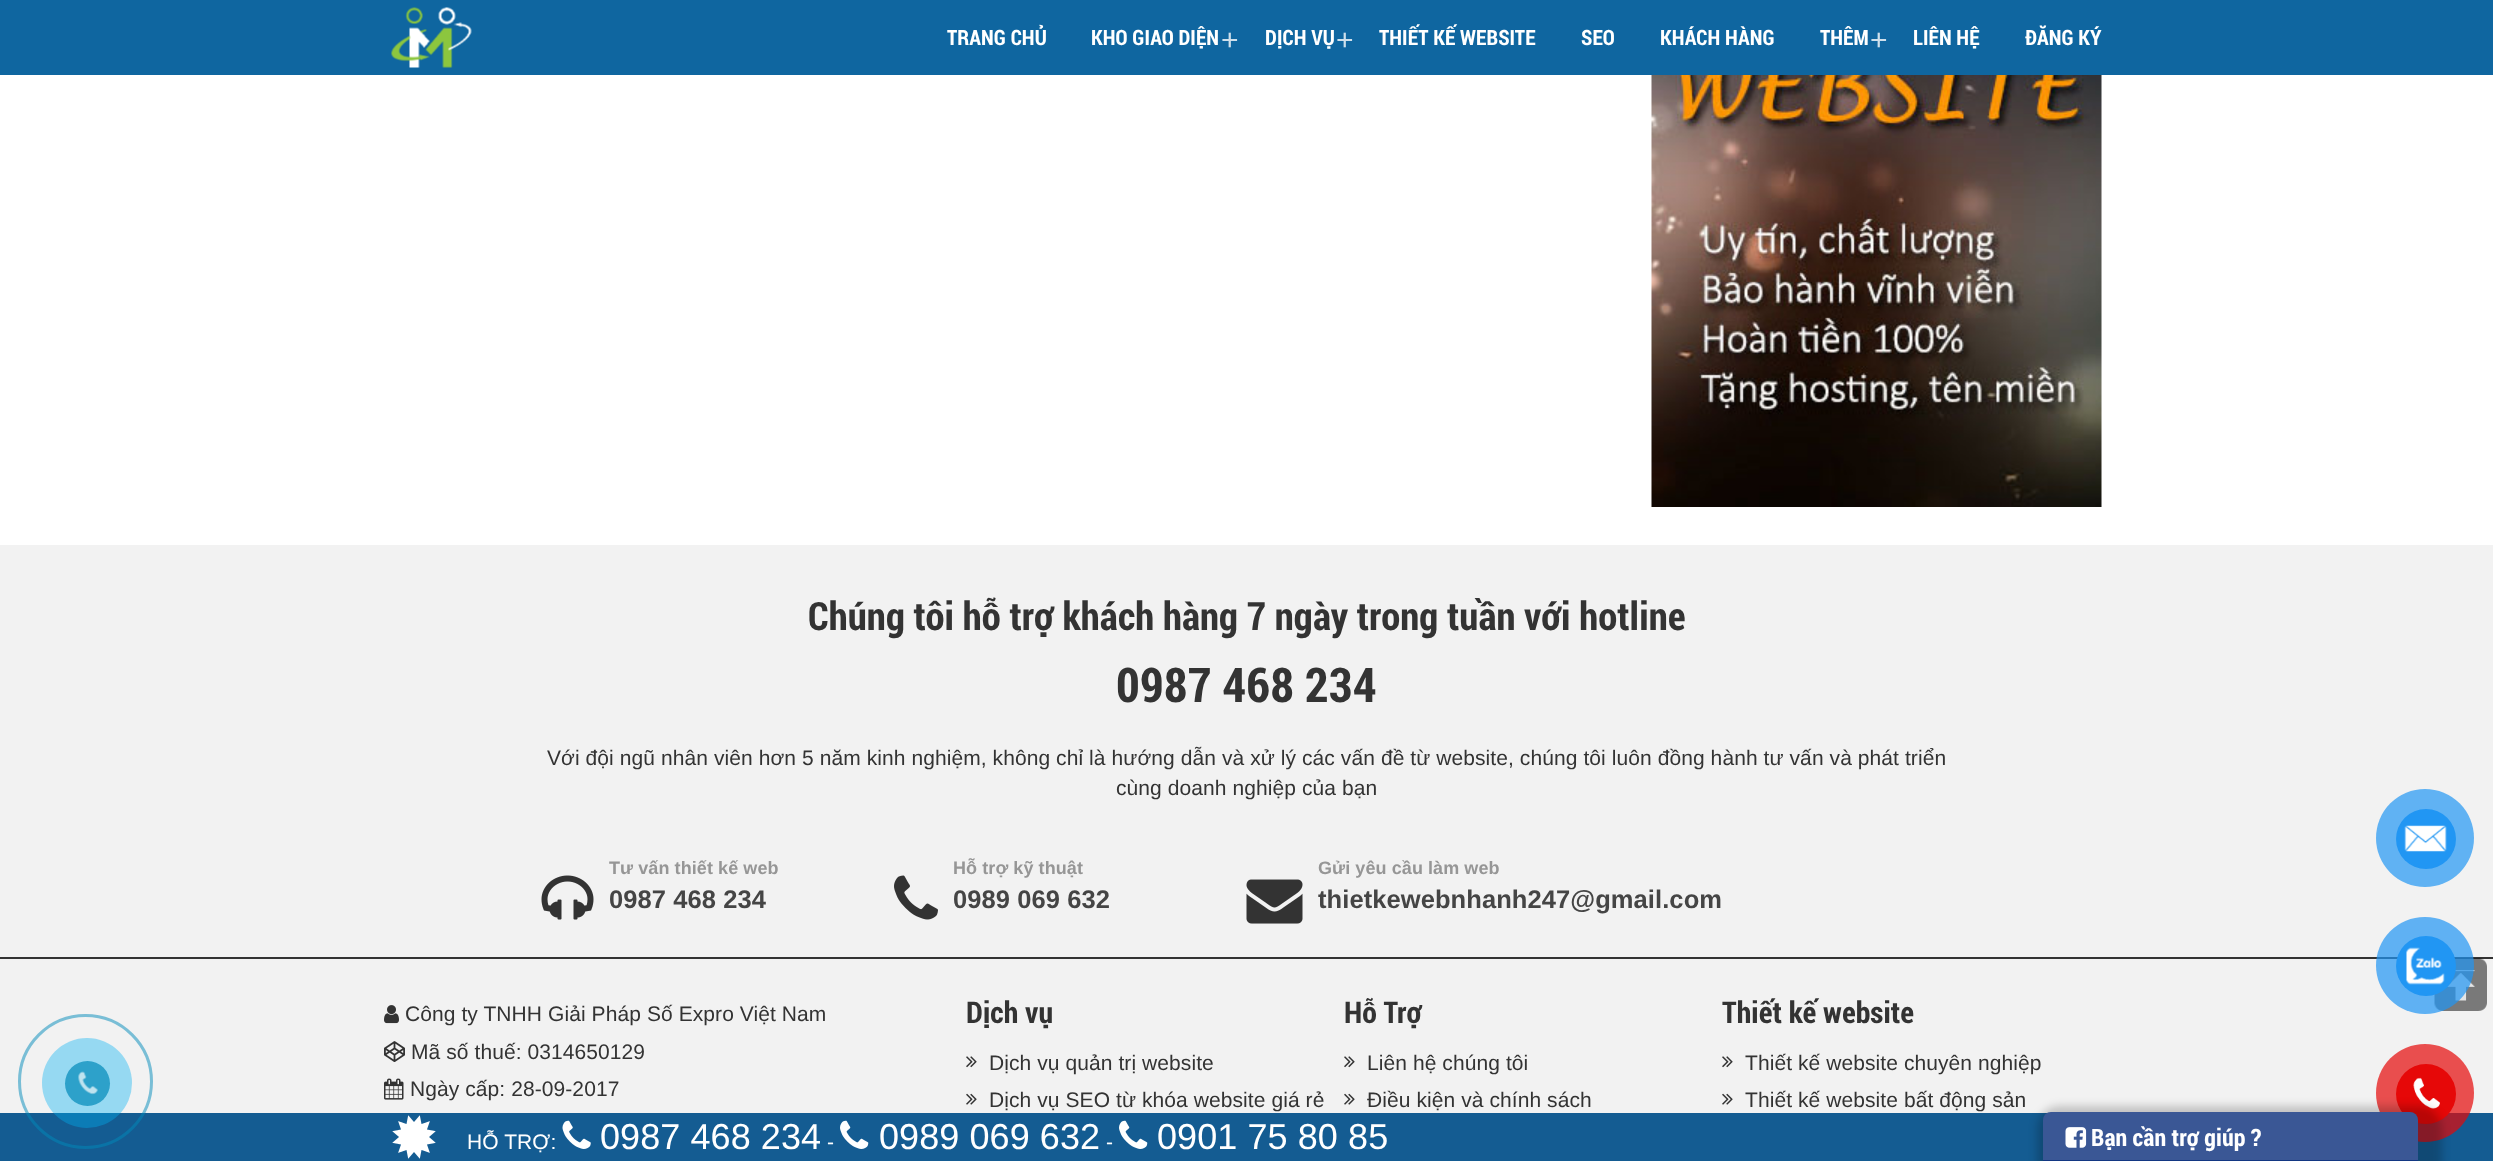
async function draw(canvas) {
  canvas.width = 2493;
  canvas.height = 1161;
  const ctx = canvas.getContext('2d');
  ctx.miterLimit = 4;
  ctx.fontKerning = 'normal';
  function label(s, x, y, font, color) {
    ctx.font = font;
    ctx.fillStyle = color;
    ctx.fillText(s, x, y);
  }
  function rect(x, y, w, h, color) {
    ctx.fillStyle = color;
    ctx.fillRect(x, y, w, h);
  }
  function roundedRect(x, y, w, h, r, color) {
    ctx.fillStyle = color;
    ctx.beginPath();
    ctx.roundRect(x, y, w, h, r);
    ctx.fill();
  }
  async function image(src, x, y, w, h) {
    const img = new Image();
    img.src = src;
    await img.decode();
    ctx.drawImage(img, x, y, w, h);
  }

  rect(0, 0, 2493, 1161, '#fff');
  rect(0, 959, 2493, 154, '#f2f2f2');
  rect(0, 1113, 2493, 48, '#145c92');
  ctx.beginPath();
  ctx.arc(85.5, 1081.5, 66, 0, 2 * Math.PI);
  ctx.strokeStyle = '#0089b980';
  ctx.lineWidth = 3;
  ctx.stroke();
  ctx.fillStyle = '#00aff261';
  ctx.beginPath();
  ctx.arc(87, 1083, 45, 0, 2 * Math.PI);
  ctx.fill();
  ctx.fillStyle = '#2da1ca';
  ctx.beginPath();
  ctx.arc(87.5, 1083.5, 22.5, 0, 2 * Math.PI);
  ctx.fill();
  await image('assets/img1.png', 78, 1071, 20, 24);
  rect(0, 0, 2493, 75, '#0f66a0');
  await image('assets/img2.png', 391, 7, 81, 61);
  ctx.letterSpacing = '0.08px';
  label('TRANG CHỦ', 947, 45, 'bold 21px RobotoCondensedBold', '#fff');
  label('KHO GIAO DIỆN', 1091, 45, 'bold 21px RobotoCondensedBold', '#fff');
  label('+', 1221, 50, '30px Liberation Sans', '#cfe0ec');
  label('DỊCH VỤ', 1265, 45, 'bold 21px RobotoCondensedBold', '#fff');
  label('+', 1336, 50, '30px Liberation Sans', '#cfe0ec');
  label('THIẾT KẾ WEBSITE', 1379, 45, 'bold 21px RobotoCondensedBold', '#fff');
  label('SEO', 1581, 45, 'bold 21px RobotoCondensedBold', '#fff');
  label('KHÁCH HÀNG', 1660, 45, 'bold 21px RobotoCondensedBold', '#fff');
  label('THÊM', 1820, 45, 'bold 21px RobotoCondensedBold', '#fff');
  label('+', 1870, 50, '30px Liberation Sans', '#cfe0ec');
  label('LIÊN HỆ', 1913, 45, 'bold 21px RobotoCondensedBold', '#fff');
  label('ĐĂNG KÝ', 2025, 45, 'bold 21px RobotoCondensedBold', '#fff');
  await image('assets/img3.png', 1651, 75, 451, 432);
  rect(0, 545, 2493, 412, '#f2f2f2');
  rect(0, 957, 2493, 2, '#333');
  label('Chúng tôi hỗ trợ khách hàng 7 ngày trong tuần với hotline', 808, 630, 'bold 39px RobotoCondensedBold', '#333');
  label('0987 468 234', 1116, 702, 'bold 48px RobotoCondensedBold', '#333');
  label('Với đội ngũ nhân viên hơn 5 năm kinh nghiệm, không chỉ là hướng dẫn và xử lý các vấn đề từ website, chúng tôi luôn đồng hành tư vấn và phát triển', 547, 765, '21px Liberation Sans', '#333');
  label('cùng doanh nghiệp của bạn', 1116, 795, '21px Liberation Sans', '#333');
  label('Tư vấn thiết kế web', 609, 874, 'bold 18px Liberation Sans', '#969696');
  await image('assets/img4.png', 541, 875, 53, 45);
  label('0987 468 234', 609, 908, 'bold 25.5px Liberation Sans', '#454545');
  label('Hỗ trợ kỹ thuật', 953, 874, 'bold 18px Liberation Sans', '#969696');
  await image('assets/img5.png', 894, 875, 44, 45);
  label('0989 069 632', 953, 908, 'bold 25.5px Liberation Sans', '#454545');
  label('Gửi yêu cầu làm web', 1318, 874, 'bold 18px Liberation Sans', '#969696');
  await image('assets/img6.png', 1246, 879, 57, 45);
  label('thietkewebnhanh247@gmail.com', 1318, 908, 'bold 25.5px Liberation Sans', '#454545');
  await image('assets/img7.png', 2434, 958, 53, 53);
  await image('assets/img8.png', 384, 1005, 15, 19);
  label('Công ty TNHH Giải Pháp Số Expro Việt Nam', 405, 1021, '21px Liberation Sans', '#333');
  await image('assets/img9.png', 384, 1041, 21, 21);
  label('Mã số thuế: 0314650129', 411, 1059, '21px Liberation Sans', '#333');
  await image('assets/img10.png', 384, 1078, 20, 22);
  label('Ngày cấp: 28-09-2017', 410, 1096, '21px Liberation Sans', '#333');
  label('Dịch vụ', 966, 1023, 'bold 30px RobotoCondensedBold', '#333');
  await image('assets/img11.png', 966, 1056, 11, 12);
  label('Dịch vụ quản trị website', 989, 1070, '21px Liberation Sans', '#333');
  await image('assets/img12.png', 966, 1093, 11, 12);
  label('Dịch vụ SEO từ khóa website giá rẻ', 989, 1107, '21px Liberation Sans', '#333');
  label('Hỗ Trợ', 1344, 1023, 'bold 30px RobotoCondensedBold', '#333');
  await image('assets/img11.png', 1344, 1056, 11, 12);
  label('Liên hệ chúng tôi', 1367, 1070, '21px Liberation Sans', '#333');
  await image('assets/img12.png', 1344, 1093, 11, 12);
  label('Điều kiện và chính sách', 1367, 1107, '21px Liberation Sans', '#333');
  label('Thiết kế website', 1722, 1023, 'bold 30px RobotoCondensedBold', '#333');
  await image('assets/img11.png', 1722, 1056, 11, 12);
  label('Thiết kế website chuyên nghiệp', 1745, 1070, '21px Liberation Sans', '#333');
  await image('assets/img12.png', 1722, 1093, 11, 12);
  label('Thiết kế website bất động sản', 1745, 1107, '21px Liberation Sans', '#333');
  ctx.fillStyle = '#60b2f3';
  ctx.beginPath();
  ctx.arc(2425, 838, 49, 0, 2 * Math.PI);
  ctx.fill();
  ctx.fillStyle = '#2196f3';
  ctx.beginPath();
  ctx.arc(2426, 839, 30, 0, 2 * Math.PI);
  ctx.fill();
  await image('assets/img13.png', 2404, 825, 43, 27);
  roundedRect(2376, 917, 98, 97, 48.5, '#2196f3b3');
  ctx.fillStyle = '#2196f3';
  ctx.beginPath();
  ctx.arc(2426, 966, 30, 0, 2 * Math.PI);
  ctx.fill();
  await image('assets/img14.png', 2406, 947, 39, 38);
  ctx.fillStyle = '#e60808b3';
  ctx.beginPath();
  ctx.arc(2425, 1093, 49, 0, 2 * Math.PI);
  ctx.fill();
  ctx.fillStyle = '#e60808';
  ctx.beginPath();
  ctx.arc(2426, 1094, 30, 0, 2 * Math.PI);
  ctx.fill();
  await image('assets/img15.png', 2413, 1077, 27, 32);
  await image('assets/img16.png', 392, 1115, 44, 44);
  label('HỖ TRỢ:', 467, 1149, '21px Liberation Sans', '#fff');
  await image('assets/img17.png', 562, 1120, 29, 29);
  label('0987 468 234', 600, 1149, '36px Liberation Sans', '#fff');
  label('-', 827, 1149, '21px Liberation Sans', '#fff');
  await image('assets/img18.png', 840, 1120, 29, 29);
  label('0989 069 632', 879, 1149, '36px Liberation Sans', '#fff');
  label('-', 1106, 1149, '21px Liberation Sans', '#fff');
  await image('assets/img18.png', 1119, 1120, 29, 29);
  label('0901 75 80 85', 1157, 1149, '36px Liberation Sans', '#fff');
  ctx.fillStyle = '#00000033';
  ctx.filter = 'blur(4.5px)';
  ctx.beginPath();
  ctx.roundRect(2037, 1106, 405, 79, 23);
  ctx.fill();
  ctx.filter = 'none';
  ctx.fillStyle = '#3a5795';
  ctx.beginPath();
  ctx.roundRect(2043, 1112, 375, 49, [8, 8, 0, 0]);
  ctx.fill();
  rect(2043, 1160, 375, 1, '#133783');
  await image('assets/img19.png', 2065, 1127, 22, 21);
  label('Bạn cần trợ giúp ?', 2091, 1146, 'bold 24px RobotoCondensedBold', '#fff');
}

draw(document.querySelector('canvas'));
